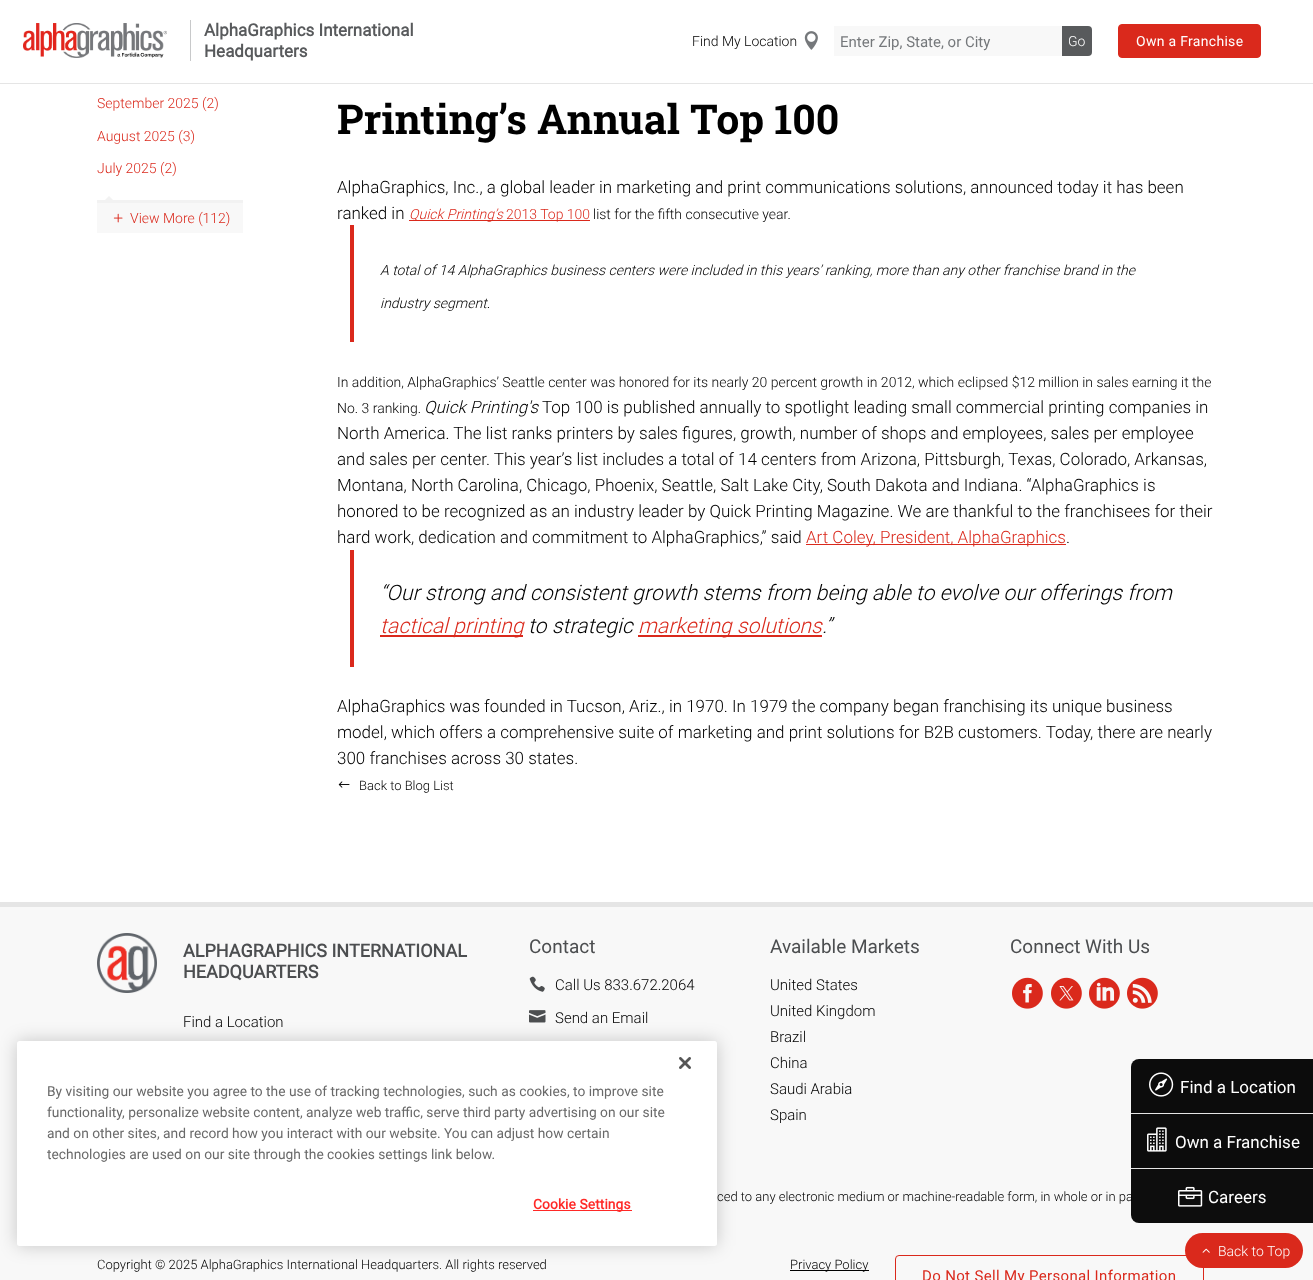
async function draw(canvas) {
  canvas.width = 1313;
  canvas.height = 1280;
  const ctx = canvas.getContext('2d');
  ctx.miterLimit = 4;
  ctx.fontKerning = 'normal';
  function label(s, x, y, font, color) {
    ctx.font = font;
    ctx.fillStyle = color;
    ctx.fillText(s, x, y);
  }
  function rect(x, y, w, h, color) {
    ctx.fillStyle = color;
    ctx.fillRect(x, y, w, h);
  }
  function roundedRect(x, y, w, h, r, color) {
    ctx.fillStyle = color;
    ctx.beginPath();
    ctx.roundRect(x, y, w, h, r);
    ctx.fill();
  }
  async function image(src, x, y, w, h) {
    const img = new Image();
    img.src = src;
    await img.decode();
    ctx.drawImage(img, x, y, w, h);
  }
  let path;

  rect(0, 0, 1313, 1280, '#fff');
  rect(0, 83, 1313, 1, '#e5e5e5');
  await image('assets/img1.png', 23, 23, 144, 35);
  rect(190, 20, 1, 41, '#c8c9ca');
  label('AlphaGraphics International', 204, 36, 'bold 17px Roboto', '#585a5c');
  label('Headquarters', 204, 57, 'bold 17px Roboto', '#585a5c');
  label('Find My Location', 692, 46, '300 14px Roboto', '#000');
  await image('assets/img2.png', 804, 31, 14, 19);
  rect(834, 26, 228, 30, '#f8f8f8');
  label('Enter Zip, State, or City', 840, 47, '15px Roboto', '#75787b');
  ctx.fillStyle = '#585a5c';
  ctx.beginPath();
  ctx.roundRect(1062, 26, 30, 30, [0, 4, 4, 0]);
  ctx.fill();
  label('Go', 1068, 46, '300 14px Roboto', '#fff');
  ctx.fillStyle = '#da291c';
  ctx.beginPath();
  ctx.roundRect(1118.5, 24.5, 142, 33, 3.5);
  ctx.fill();
  ctx.strokeStyle = '#da291c';
  ctx.stroke();
  ctx.letterSpacing = '0.3px';
  label('Own a Franchise', 1136, 46, '14px Roboto', '#fff');
  rect(0, 907, 1313, 373, '#f8f8f8');
  ctx.fillStyle = '#0c0c0c';
  ctx.beginPath();
  ctx.roundRect(1131, 1059, 182, 55, [8, 0, 0, 0]);
  ctx.fill();
  rect(1131, 1113, 182, 1, '#e5e5e5');
  await image('assets/img3.png', 1149, 1072, 25, 25);
  ctx.letterSpacing = '0px';
  label('Find a Location', 1180, 1093, '17px Roboto', '#fff');
  rect(1131, 1114, 182, 54, '#0c0c0c');
  rect(1131, 1168, 182, 1, '#e5e5e5');
  await image('assets/img4.png', 1147, 1127, 20, 25);
  label('Own a Franchise', 1175, 1148, '17px Roboto', '#fff');
  label('ced to any electronic medium or machine-readable form, in whole or in pa', 717, 1201, '300 13px Roboto', '#000');
  ctx.fillStyle = '#000000f2';
  ctx.beginPath();
  ctx.roundRect(1131, 1169, 182, 54, [0, 0, 0, 8]);
  ctx.fill();
  await image('assets/img5.png', 1178, 1186, 25, 21);
  label('Careers', 1208, 1203, '17px Roboto', '#fff');
  label('September 2025 (2)', 97, 108, '300 14px Roboto', '#da291c');
  label('August 2025 (3)', 97, 141, '300 14px Roboto', '#da291c');
  label('July 2025 (2)', 97, 173, '300 14px Roboto', '#da291c');
  rect(97, 203, 146, 30, '#f8f8f8');
  rect(97, 200, 146, 3, '#f2f2f2');
  path = new Path2D('M116 203H102L109 196Z');
  ctx.fill(path);
  await image('assets/img6.png', 113, 213, 10, 10);
  label('View More (112)', 130, 223, '300 14px Roboto', '#da291c');
  label('Printing’s Annual Top 100', 337, 134, 'bold 41px Roboto Slab', '#000');
  label('AlphaGraphics, Inc., a global leader in marketing and print communications solutions, announced today it has been', 337, 193, '300 17px Roboto', '#000');
  label('ranked in', 337, 219, '300 17px Roboto', '#000');
  rect(409, 220, 93, 1, '#da291c');
  label('Quick Printing’s', 409, 219, 'italic 300 14px Roboto', '#da291c');
  rect(502, 220, 88, 1, '#da291c');
  label('2013 Top 100', 506, 219, '300 14px Roboto', '#da291c');
  label('list for the fifth consecutive year.', 593, 219, '300 14px Roboto', '#000');
  rect(350, 225, 4, 117, '#da291c');
  label('A total of 14 AlphaGraphics business centers were included in this years’ ranking, more than any other franchise brand in the', 380, 275, 'italic 300 14px Roboto', '#000');
  label('industry segment.', 380, 308, 'italic 300 14px Roboto', '#000');
  label('In addition, AlphaGraphics’ Seattle center was honored for its nearly 20 percent growth in 2012, which eclipsed $12 million in sales earning it the', 337, 387, '300 14px Roboto', '#000');
  label('No. 3 ranking.', 337, 413, '300 14px Roboto', '#000');
  label('Quick Printing\'s', 424, 413, 'italic 300 17px Roboto', '#000');
  label('Top 100 is published annually to spotlight leading small commercial printing companies in', 542, 413, '300 17px Roboto', '#000');
  label('North America. The list ranks printers by sales figures, growth, number of shops and employees, sales per employee', 337, 439, '300 17px Roboto', '#000');
  label('and sales per center. This year’s list includes a total of 14 centers from Arizona, Pittsburgh, Texas, Colorado, Arkansas,', 337, 465, '300 17px Roboto', '#000');
  label('Montana, North Carolina, Chicago, Phoenix, Seattle, Salt Lake City, South Dakota and Indiana. “AlphaGraphics is', 337, 491, '300 17px Roboto', '#000');
  label('honored to be recognized as an industry leader by Quick Printing Magazine. We are thankful to the franchisees for their', 337, 517, '300 17px Roboto', '#000');
  label('hard work, dedication and commitment to AlphaGraphics,” said', 337, 543, '300 17px Roboto', '#000');
  rect(806, 544, 260, 1, '#da291c');
  label('Art Coley, President, AlphaGraphics', 806, 543, '300 17px Roboto', '#da291c');
  label('.', 1066, 543, '300 17px Roboto', '#000');
  rect(350, 550, 4, 117, '#da291c');
  label('“Our strong and consistent growth stems from being able to evolve our offerings from', 380, 600, 'italic 300 21.25px Roboto', '#000');
  rect(380, 635, 143, 2, '#da291c');
  label('tactical printing', 380, 633, 'italic 300 21.25px Roboto', '#da291c');
  label('to strategic', 528, 633, 'italic 300 21.25px Roboto', '#000');
  rect(638, 635, 184, 2, '#da291c');
  label('marketing solutions', 638, 633, 'italic 300 21.25px Roboto', '#da291c');
  label('.”', 822, 633, 'italic 300 21.25px Roboto', '#000');
  label('AlphaGraphics was founded in Tucson, Ariz., in 1970. In 1979 the company began franchising its unique business', 337, 712, '300 17px Roboto', '#000');
  label('model, which offers a comprehensive suite of marketing and print solutions for B2B customers. Today, there are nearly', 337, 738, '300 17px Roboto', '#000');
  label('300 franchises across 30 states.', 337, 764, '300 17px Roboto', '#000');
  await image('assets/img7.png', 338, 781, 12, 7);
  label('Back to Blog List', 359, 790, '300 13px Roboto', '#000');
  rect(0, 902, 1313, 5, '#e5e5e5');
  await image('assets/img8.png', 97, 933, 60, 60);
  label('ALPHAGRAPHICS INTERNATIONAL', 183, 957, 'bold 18px Roboto', '#4c4e50');
  label('HEADQUARTERS', 183, 978, 'bold 18px Roboto', '#4c4e50');
  label('Find a Location', 183, 1027, '300 15px Roboto', '#000');
  label('Contact', 529, 953, '19px Roboto', '#4c4e50');
  await image('assets/img9.png', 529, 976, 16, 16);
  label('Call Us 833.672.2064', 555, 990, '300 15px Roboto', '#000');
  await image('assets/img10.png', 529, 1010, 17, 13);
  label('Send an Email', 555, 1023, '300 15px Roboto', '#000');
  label('Available Markets', 770, 953, '19px Roboto', '#4c4e50');
  label('United States', 770, 990, '300 15px Roboto', '#000');
  label('United Kingdom', 770, 1016, '300 15px Roboto', '#000');
  label('Brazil', 770, 1042, '300 15px Roboto', '#000');
  label('China', 770, 1068, '300 15px Roboto', '#000');
  label('Saudi Arabia', 770, 1094, '300 15px Roboto', '#000');
  label('Spain', 770, 1120, '300 15px Roboto', '#000');
  label('Connect With Us', 1010, 953, '19px Roboto', '#4c4e50');
  await image('assets/img11.png', 1012, 977, 31, 32);
  await image('assets/img12.png', 1051, 977, 31, 32);
  await image('assets/img13.png', 1089, 977, 31, 32);
  await image('assets/img14.png', 1127, 977, 31, 32);
  label('Copyright © 2025 AlphaGraphics International Headquarters. All rights reserved', 97, 1269, '300 13px Roboto', '#000');
  ctx.beginPath();
  ctx.roundRect(895.5, 1255.5, 308, 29, 3.5);
  ctx.stroke();
  roundedRect(1185, 1233, 118, 35, 17.5, '#da291c');
  await image('assets/img15.png', 1202, 1248, 8, 5);
  label('Back to Top', 1218, 1256, '300 14px Roboto', '#fff');
  rect(790, 1270, 79, 1, '#000');
  label('Privacy Policy', 790, 1269, '300 13px Roboto', '#000');
  ctx.letterSpacing = '0.35px';
  label('Do Not Sell My Personal Information', 922, 1281, '15px Roboto', '#da291c');
  ctx.fillStyle = '#00000033';
  ctx.filter = 'blur(9px)';
  ctx.beginPath();
  ctx.roundRect(17, 1041, 700, 205, 2.5);
  ctx.fill();
  ctx.filter = 'none';
  roundedRect(17, 1041, 700, 205, 2.5, '#fff');
  await image('assets/img16.png', 679, 1057, 12, 12);
  ctx.letterSpacing = '0px';
  label('By visiting our website you agree to the use of tracking technologies, such as cookies, to improve site', 47, 1096, '13.8px Roboto', '#696969');
  label('functionality, personalize website content, analyze web traffic, serve third party advertising on our site', 47, 1117, '13.8px Roboto', '#696969');
  label('and on other sites, and record how you interact with our website. You can adjust how certain', 47, 1138, '13.8px Roboto', '#696969');
  label('technologies are used on our site through the cookies settings link below.', 47, 1159, '13.8px Roboto', '#696969');
  rect(533, 1210, 99, 1, '#ff2927');
  ctx.letterSpacing = '0.1px';
  label('Cookie Settings', 533, 1209, 'bold 13.8px Roboto', '#ff2927');
}

draw(document.querySelector('canvas'));
